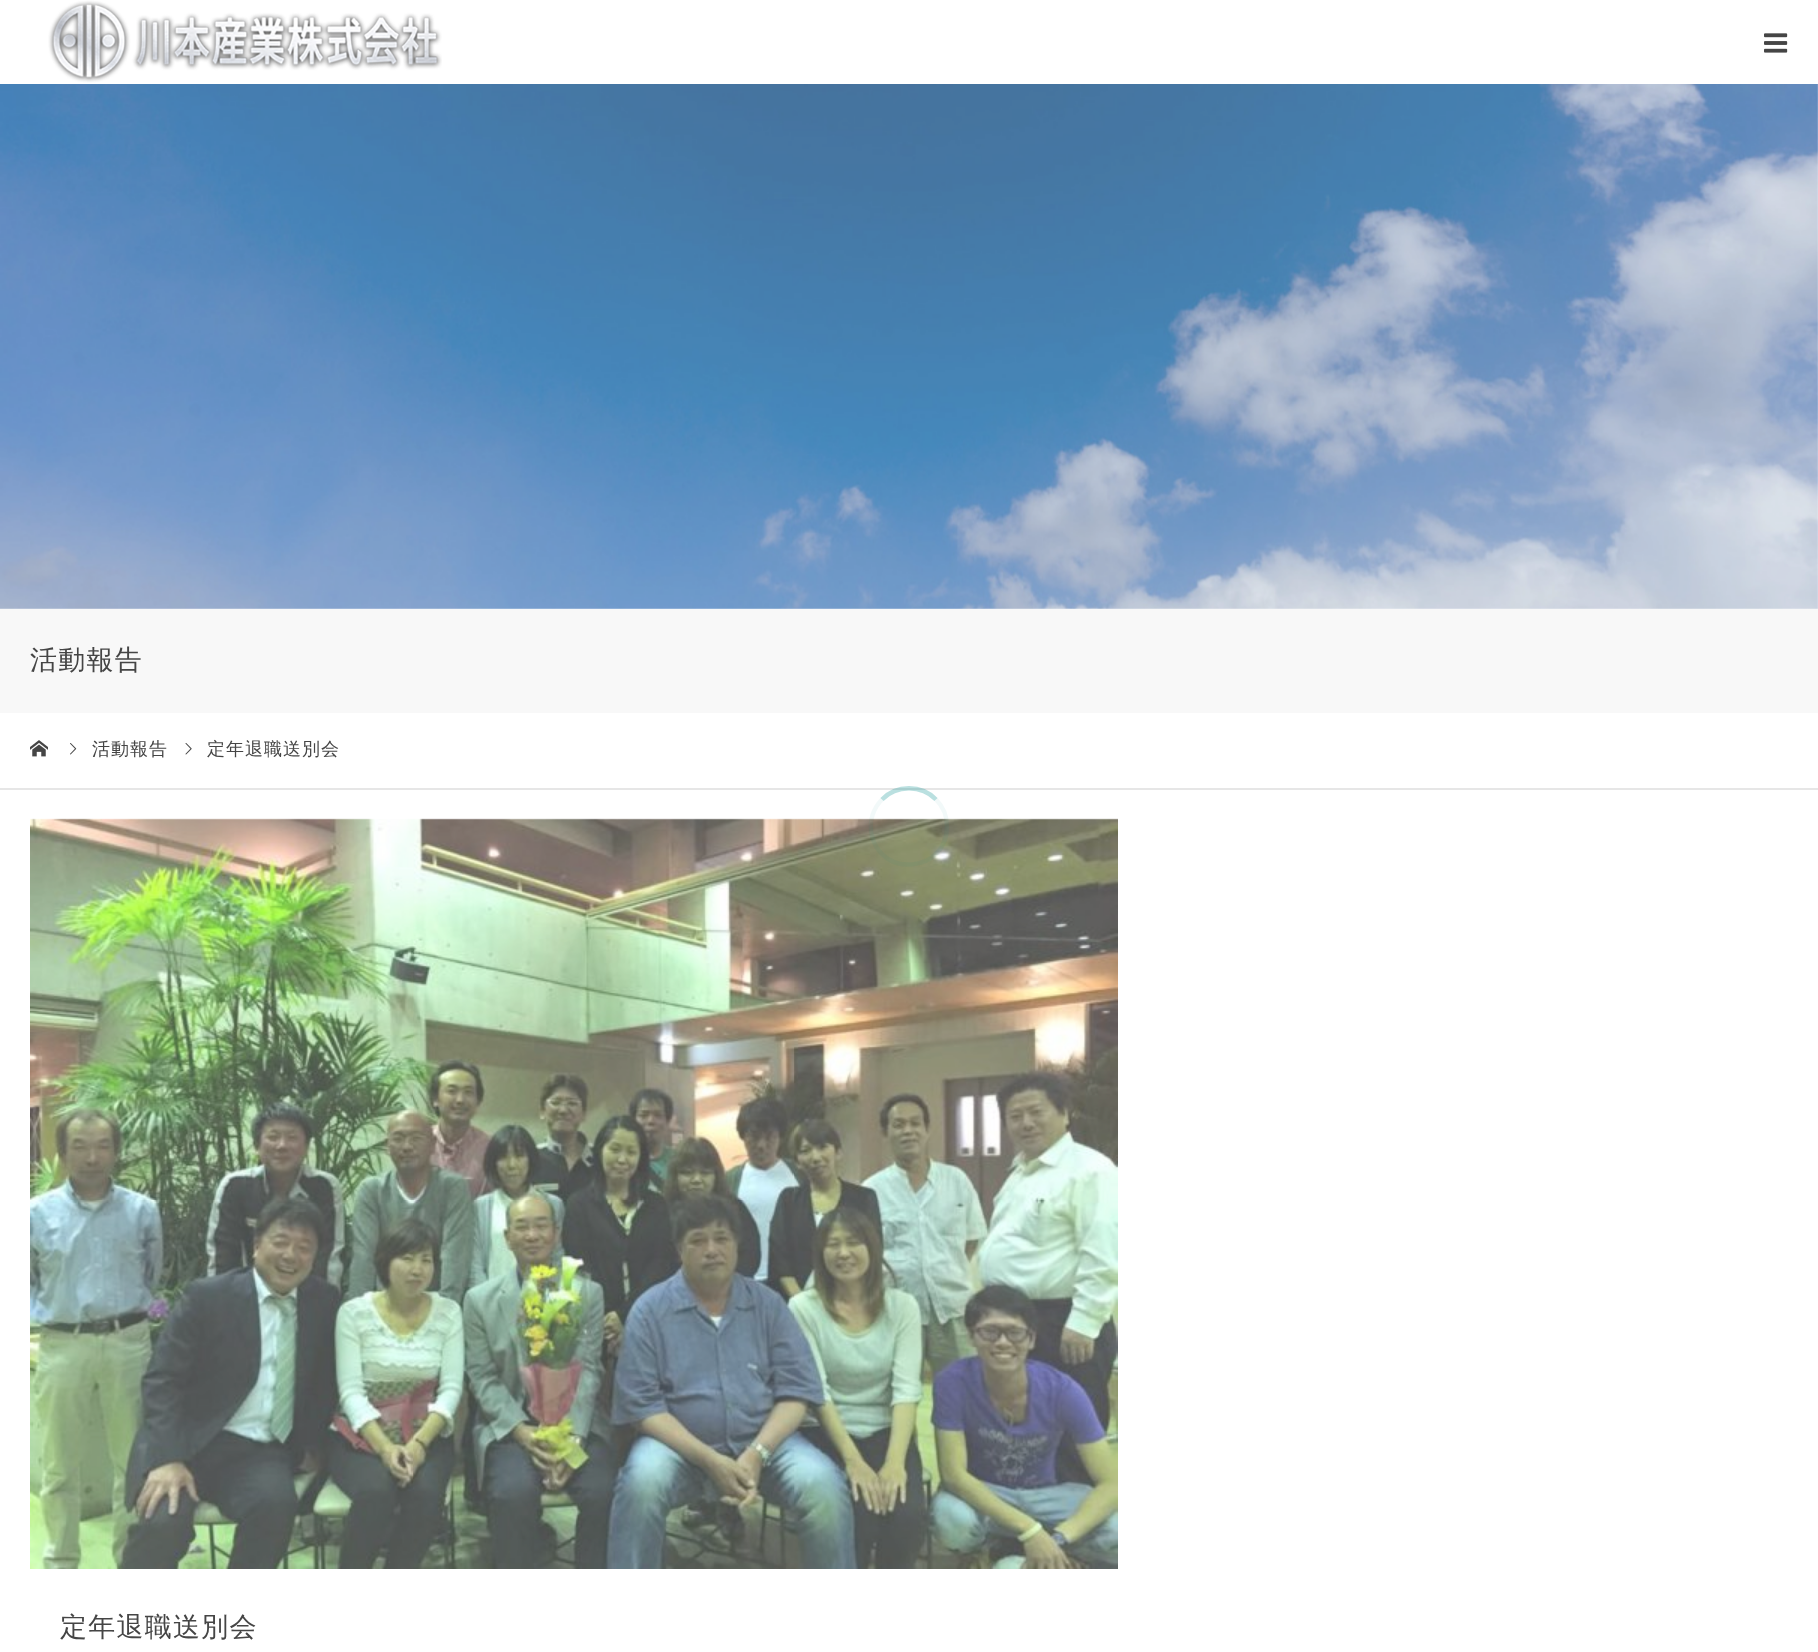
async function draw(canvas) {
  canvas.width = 1818;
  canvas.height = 1652;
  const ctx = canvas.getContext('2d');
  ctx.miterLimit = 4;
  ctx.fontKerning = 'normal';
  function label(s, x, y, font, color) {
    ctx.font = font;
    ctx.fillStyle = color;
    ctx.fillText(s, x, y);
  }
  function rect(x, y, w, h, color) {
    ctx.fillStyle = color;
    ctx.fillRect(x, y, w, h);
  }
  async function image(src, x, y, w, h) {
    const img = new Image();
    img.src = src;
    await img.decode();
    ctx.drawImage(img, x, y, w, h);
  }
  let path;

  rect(0, 0, 1818, 1652, '#fff');
  await image('assets/img1.png', 48, 0, 394, 83);
  await image('assets/img2.png', 1764, 33, 24, 20);
  await image('assets/img3.png', 0, 84, 1818, 525);
  rect(0, 609, 1818, 104, '#f8f8f8');
  ctx.letterSpacing = '1.25px';
  label('活動報告', 30, 669, '500 27px WenQuanYi Zen Hei', '#454545');
  rect(0, 788, 1818, 2, '#e6e6e6');
  await image('assets/img4.png', 30, 740, 18, 17);
  await image('assets/img5.png', 70, 743, 7, 12);
  ctx.letterSpacing = '1px';
  label('活動報告', 92, 755, '500 18px WenQuanYi Zen Hei', '#454545');
  await image('assets/img6.png', 185, 743, 7, 12);
  label('定年退職送別会', 207, 755, '500 18px WenQuanYi Zen Hei', '#454545');
  await image('assets/img7.png', 30, 818, 1088, 751);
  ctx.letterSpacing = '1.25px';
  label('定年退職送別会', 60, 1636, '500 27px WenQuanYi Zen Hei', '#454545');
  path = new Path2D('M882 799.5C896.5 784.5 921.5 784.5 936 799.5');
  ctx.strokeStyle = '#008c8d45';
  ctx.lineWidth = 4.5;
  ctx.stroke(path);
  path = new Path2D('M936 799.5C943 806.5 947 816.5 947 826.5C947 872.5 880.5 879 871.5 834C869 821.5 873 808.5 882 799.5');
  ctx.strokeStyle = '#008c8d0d';
  ctx.stroke(path);
}

draw(document.querySelector('canvas'));
